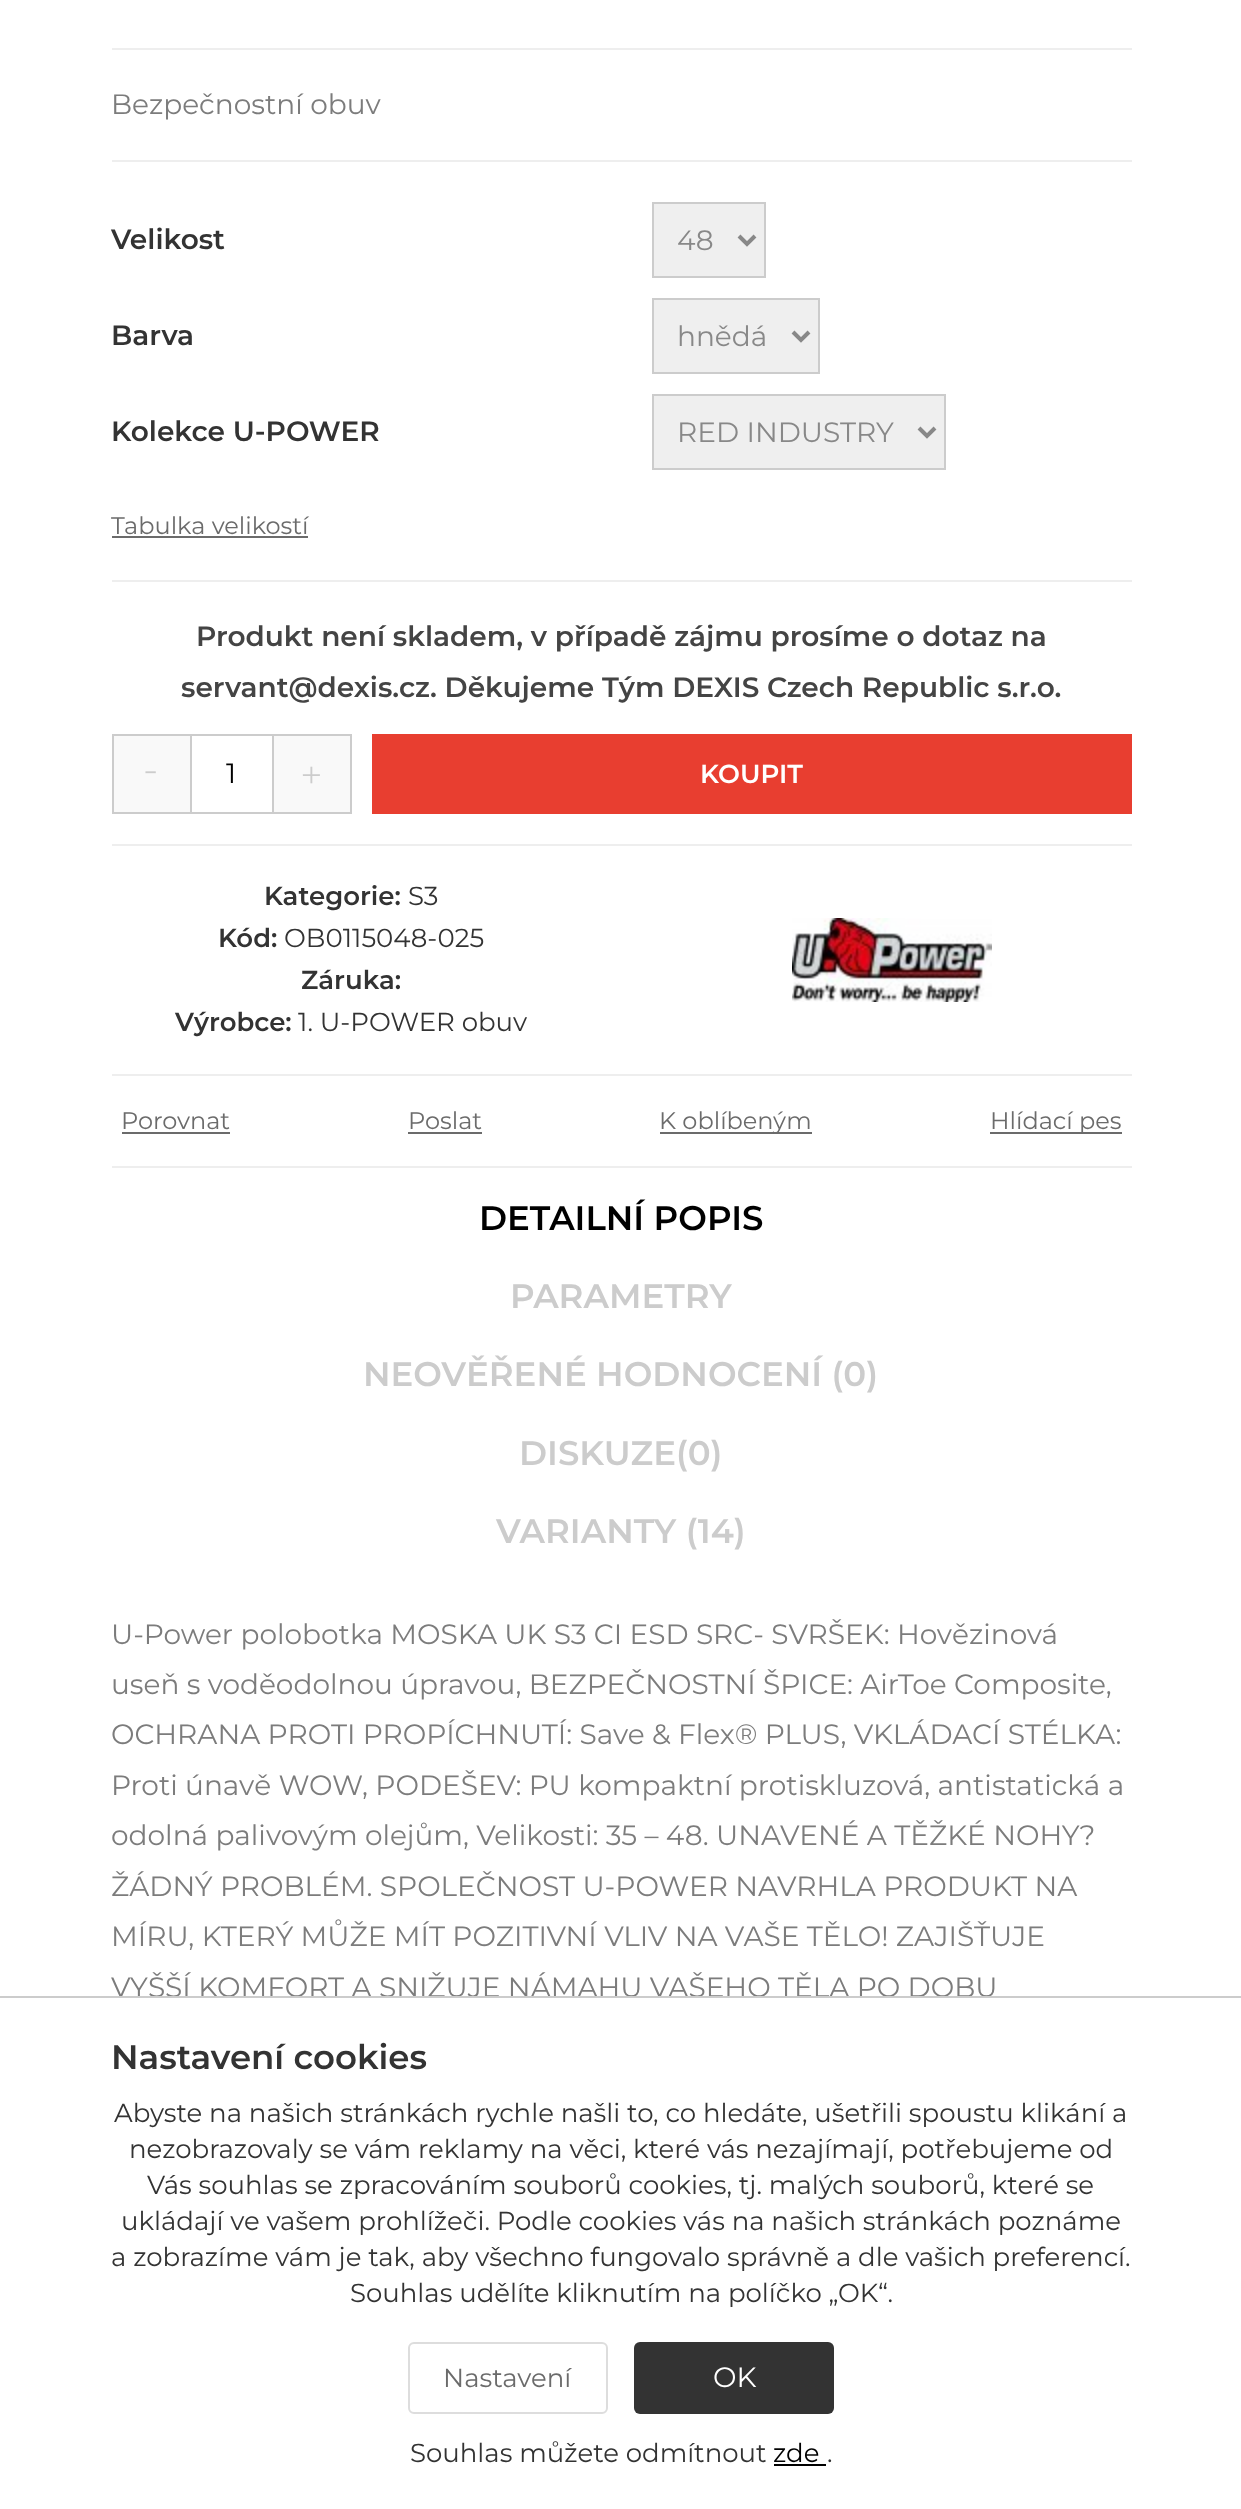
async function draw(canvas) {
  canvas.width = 1241;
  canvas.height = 2509;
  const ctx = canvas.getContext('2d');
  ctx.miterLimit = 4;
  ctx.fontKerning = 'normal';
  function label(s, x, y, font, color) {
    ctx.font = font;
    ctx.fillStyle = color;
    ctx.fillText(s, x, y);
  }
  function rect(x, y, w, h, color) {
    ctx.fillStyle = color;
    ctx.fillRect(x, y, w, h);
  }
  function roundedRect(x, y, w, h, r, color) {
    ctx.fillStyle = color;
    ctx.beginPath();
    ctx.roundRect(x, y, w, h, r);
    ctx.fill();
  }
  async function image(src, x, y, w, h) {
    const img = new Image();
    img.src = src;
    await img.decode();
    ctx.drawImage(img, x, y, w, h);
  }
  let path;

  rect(0, 0, 1241, 2509, '#fff');
  rect(112, 48, 1020, 2, '#eee');
  rect(112, 160, 1020, 2, '#eee');
  label('Bezpečnostní obuv', 111, 114, '28px Montserrat', '#7c7c7c');
  label('Velikost', 111, 249, '600 28px Montserrat', '#333');
  ctx.fillStyle = '#efefef';
  ctx.beginPath();
  ctx.rect(653, 203, 112, 74);
  ctx.fill();
  ctx.strokeStyle = '#ccc';
  ctx.lineWidth = 2;
  ctx.stroke();
  path = new Path2D('M739 236L747 244L755 236');
  ctx.strokeStyle = '#888';
  ctx.lineWidth = 4;
  ctx.stroke(path);
  label('48', 677, 250, '28px Montserrat', '#888');
  label('Barva', 111, 345, '600 28px Montserrat', '#333');
  ctx.fillStyle = '#efefef';
  ctx.beginPath();
  ctx.rect(653, 299, 166, 74);
  ctx.fill();
  ctx.strokeStyle = '#ccc';
  ctx.lineWidth = 2;
  ctx.stroke();
  path = new Path2D('M793 332L801 340L809 332');
  ctx.strokeStyle = '#888';
  ctx.lineWidth = 4;
  ctx.stroke(path);
  label('hnědá', 677, 346, '28px Montserrat', '#888');
  label('Kolekce U-POWER', 111, 441, '600 28px Montserrat', '#333');
  ctx.fillStyle = '#efefef';
  ctx.beginPath();
  ctx.rect(653, 395, 292, 74);
  ctx.fill();
  ctx.strokeStyle = '#ccc';
  ctx.lineWidth = 2;
  ctx.stroke();
  path = new Path2D('M919 428L927 436L935 428');
  ctx.strokeStyle = '#888';
  ctx.lineWidth = 4;
  ctx.stroke(path);
  label('RED INDUSTRY', 677, 442, '28px Montserrat', '#888');
  label('Tabulka velikostí', 111, 534, '24px Montserrat', '#6b6b6b');
  rect(112, 536, 196, 2, '#6b6b6b');
  rect(112, 580, 1020, 2, '#eee');
  rect(112, 844, 1020, 2, '#eee');
  label('Produkt není skladem, v případě zájmu prosíme o dotaz na', 196, 646, '600 28px Montserrat', '#444');
  label('servant@dexis.cz. Děkujeme Tým DEXIS Czech Republic s.r.o.', 181, 697, '600 28px Montserrat', '#444');
  ctx.fillStyle = '#f9f9f9';
  ctx.beginPath();
  ctx.rect(113, 735, 78, 78);
  ctx.fill();
  ctx.strokeStyle = '#ccc';
  ctx.lineWidth = 2;
  ctx.stroke();
  label('-', 143, 783, '300 40px Montserrat', '#ccc');
  rect(192, 734, 80, 2, '#ccc');
  rect(192, 812, 80, 2, '#ccc');
  label('1', 226, 783, '28px Montserrat', '#000');
  ctx.fillStyle = '#f9f9f9';
  ctx.beginPath();
  ctx.rect(273, 735, 78, 78);
  ctx.fill();
  ctx.stroke();
  label('+', 300, 789, '300 40px Montserrat', '#ccc');
  rect(372, 734, 760, 80, '#e83e30');
  label('KOUPIT', 700, 783, '600 26px Montserrat', '#fff');
  rect(112, 1074, 1020, 2, '#eee');
  label('Kategorie:', 264, 905, '600 26px Montserrat', '#333');
  label('S3', 408, 905, '26px Montserrat', '#333');
  label('Kód:', 218, 947, '600 26px Montserrat', '#333');
  label('OB0115048-025', 284, 947, '26px Montserrat', '#333');
  label('Záruka:', 301, 989, '600 26px Montserrat', '#333');
  label('Výrobce:', 175, 1031, '600 26px Montserrat', '#333');
  label('1. U-POWER obuv', 298, 1031, '26px Montserrat', '#333');
  await image('assets/img1.png', 792, 918, 200, 84);
  label('Porovnat', 121, 1129, '24px Montserrat', '#6b6b6b');
  rect(122, 1132, 108, 2, '#6b6b6b');
  label('Poslat', 408, 1129, '24px Montserrat', '#6b6b6b');
  rect(408, 1132, 74, 2, '#6b6b6b');
  rect(660, 1132, 152, 2, '#6b6b6b');
  label('K oblíbeným', 659, 1129, '24px Montserrat', '#6b6b6b');
  rect(990, 1132, 132, 2, '#6b6b6b');
  label('Hlídací pes', 990, 1129, '24px Montserrat', '#6b6b6b');
  rect(112, 1166, 1020, 2, '#eee');
  label('DETAILNÍ POPIS', 479, 1230, '600 34px Montserrat', '#000');
  label('PARAMETRY', 510, 1308, '600 34px Montserrat', '#ccc');
  label('NEOVĚŘENÉ HODNOCENÍ (0)', 363, 1386, '600 34px Montserrat', '#ccc');
  label('DISKUZE(0)', 519, 1465, '600 34px Montserrat', '#ccc');
  label('VARIANTY (14)', 496, 1543, '600 34px Montserrat', '#ccc');
  label('U-Power polobotka MOSKA UK S3 CI ESD SRC- SVRŠEK: Hovězinová', 111, 1644, '28px Montserrat', '#7c7c7c');
  label('useň s voděodolnou úpravou, BEZPEČNOSTNÍ ŠPICE: AirToe Composite,', 111, 1694, '28px Montserrat', '#7c7c7c');
  label('OCHRANA PROTI PROPÍCHNUTÍ: Save & Flex® PLUS, VKLÁDACÍ STÉLKA:', 111, 1744, '28px Montserrat', '#7c7c7c');
  label('Proti únavě WOW, PODEŠEV: PU kompaktní protiskluzová, antistatická a', 111, 1795, '28px Montserrat', '#7c7c7c');
  label('odolná palivovým olejům, Velikosti: 35 – 48. UNAVENÉ A TĚŽKÉ NOHY?', 111, 1845, '28px Montserrat', '#7c7c7c');
  label('ŽÁDNÝ PROBLÉM. SPOLEČNOST U-POWER NAVRHLA PRODUKT NA', 111, 1896, '28px Montserrat', '#7c7c7c');
  label('MÍRU, KTERÝ MŮŽE MÍT POZITIVNÍ VLIV NA VAŠE TĚLO! ZAJIŠŤUJE', 111, 1946, '28px Montserrat', '#7c7c7c');
  label('VYŠŠÍ KOMFORT A SNIŽUJE NÁMAHU VAŠEHO TĚLA PO DOBU', 111, 1997, '28px Montserrat', '#7c7c7c');
  rect(0, 1996, 1241, 2, '#ccc');
  label('Nastavení cookies', 111, 2069, '600 34px Montserrat', '#333');
  label('Abyste na našich stránkách rychle našli to, co hledáte, ušetřili spoustu klikání a', 114, 2122, '26px Montserrat', '#333');
  label('nezobrazovaly se vám reklamy na věci, které vás nezajímají, potřebujeme od', 129, 2158, '26px Montserrat', '#333');
  label('Vás souhlas se zpracováním souborů cookies, tj. malých souborů, které se', 147, 2194, '26px Montserrat', '#333');
  label('ukládají ve vašem prohlížeči. Podle cookies vás na našich stránkách poznáme', 121, 2230, '26px Montserrat', '#333');
  label('a zobrazíme vám je tak, aby všechno fungovalo správně a dle vašich preferencí.', 111, 2266, '26px Montserrat', '#333');
  label('Souhlas udělíte kliknutím na políčko „OK“.', 350, 2302, '26px Montserrat', '#333');
  ctx.beginPath();
  ctx.roundRect(409, 2343, 198, 70, 5);
  ctx.strokeStyle = '#ddd';
  ctx.stroke();
  label('Nastavení', 443, 2387, '26px Montserrat', '#6b6b6b');
  roundedRect(634, 2342, 200, 72, 6, '#333');
  label('OK', 713, 2387, '28px Montserrat', '#fff');
  label('Souhlas můžete odmítnout', 410, 2462, '26px Montserrat', '#333');
  label('zde', 773, 2462, '26px Montserrat', '#000');
  rect(774, 2464, 52, 2, '#000');
  label('.', 827, 2462, '26px Montserrat', '#333');
}

draw(document.querySelector('canvas'));
